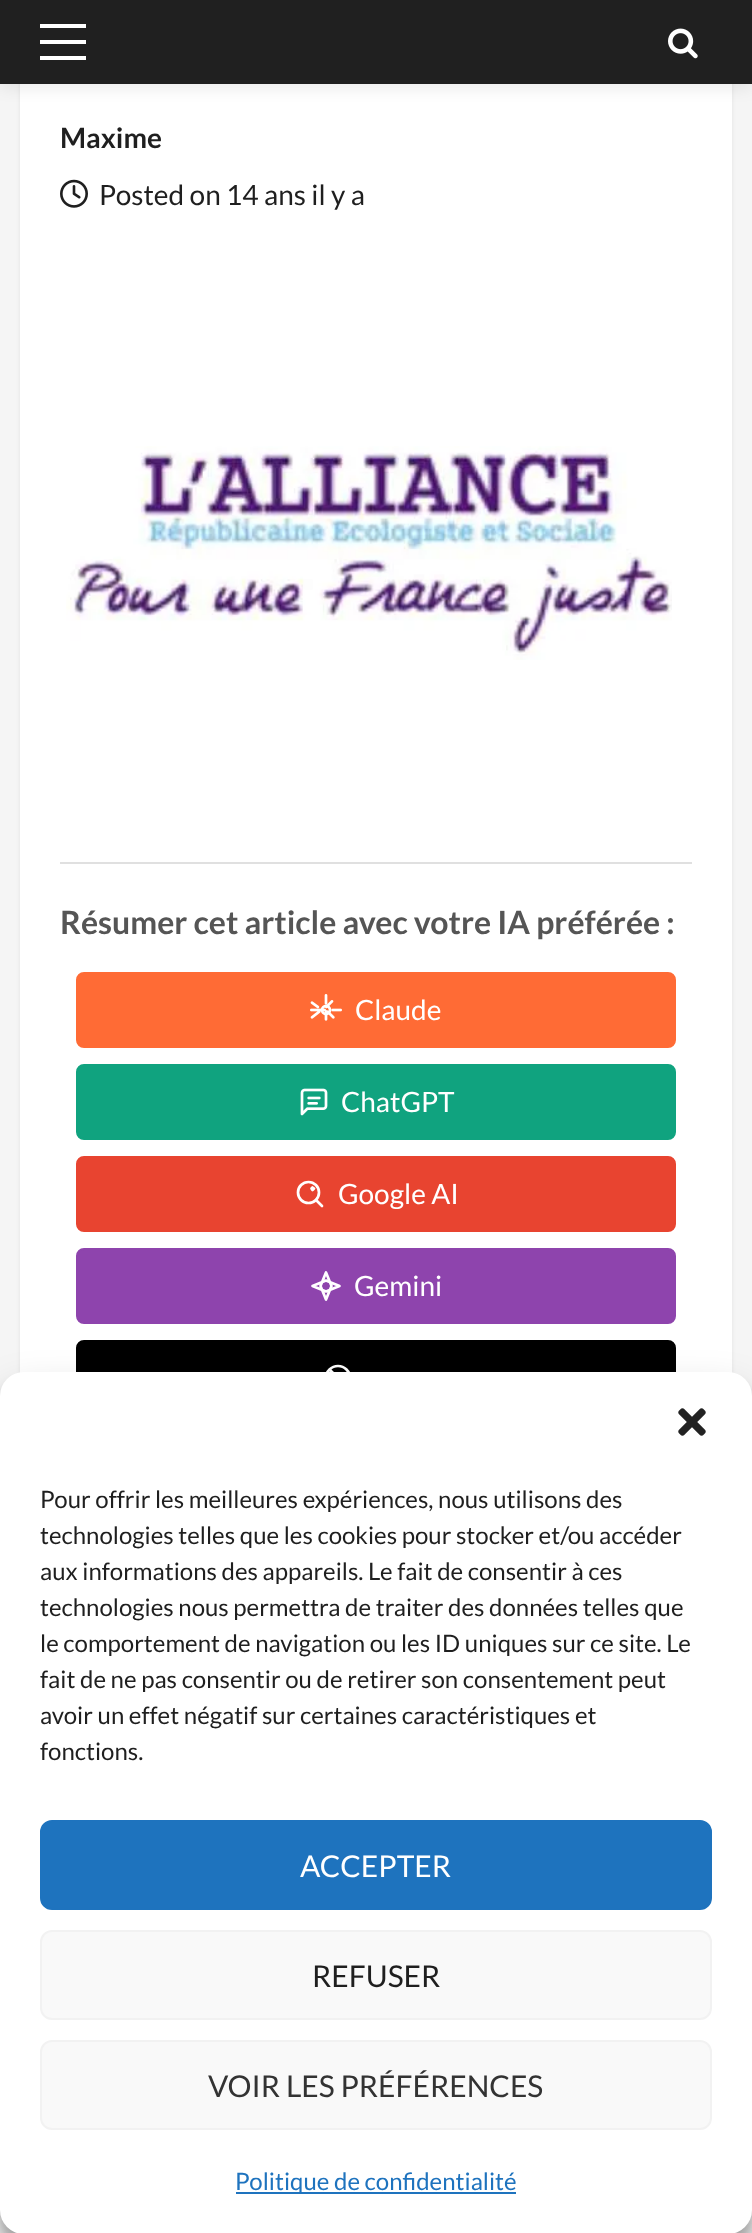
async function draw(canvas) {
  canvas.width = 752;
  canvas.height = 2233;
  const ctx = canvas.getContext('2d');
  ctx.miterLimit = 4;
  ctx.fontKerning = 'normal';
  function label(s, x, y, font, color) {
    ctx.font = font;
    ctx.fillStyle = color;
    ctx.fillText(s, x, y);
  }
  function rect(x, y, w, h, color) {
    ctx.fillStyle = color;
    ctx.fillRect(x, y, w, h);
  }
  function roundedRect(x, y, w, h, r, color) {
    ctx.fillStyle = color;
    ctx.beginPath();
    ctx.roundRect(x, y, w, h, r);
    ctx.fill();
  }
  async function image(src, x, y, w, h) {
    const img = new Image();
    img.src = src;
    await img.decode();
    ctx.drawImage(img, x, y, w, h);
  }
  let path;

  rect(0, 0, 752, 2233, '#f5f5f5');
  ctx.fillStyle = '#00000014';
  ctx.filter = 'blur(2px)';
  ctx.beginPath();
  ctx.rect(20, -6, 712, 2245);
  ctx.fill();
  ctx.filter = 'none';
  rect(20, 84, 712, 1289, '#fff');
  ctx.fillStyle = '#00000014';
  ctx.filter = 'blur(8px)';
  ctx.beginPath();
  ctx.rect(0, 4, 752, 84);
  ctx.fill();
  ctx.filter = 'none';
  rect(0, 0, 752, 84, '#202020');
  rect(40, 40, 46, 4, '#fff');
  rect(40, 24, 46, 4, '#fff');
  rect(40, 56, 46, 4, '#fff');
  await image('assets/img1.png', 668, 28, 30, 31);
  label('Maxime', 60, 148, 'bold 28px Lato', '#1f1f1f');
  await image('assets/img2.png', 60, 179, 28, 29);
  label('Posted on 14 ans il y a', 99, 205, '28px Lato', '#1f1f1f');
  await image('assets/img3.png', 66, 446, 606, 214);
  rect(60, 862, 632, 2, '#e0e0e0');
  label('Résumer cet article avec votre IA préférée :', 60, 934, 'bold 32px Lato', '#555');
  ctx.fillStyle = '#ff6b35';
  ctx.beginPath();
  ctx.roundRect(77, 973, 598, 74, 7);
  ctx.fill();
  ctx.strokeStyle = '#ff6b35';
  ctx.lineWidth = 2;
  ctx.stroke();
  await image('assets/img4.png', 310, 994, 32, 27);
  label('Claude', 355, 1020, '28px Lato', '#fff');
  ctx.fillStyle = '#10a37f';
  ctx.beginPath();
  ctx.roundRect(77, 1065, 598, 74, 7);
  ctx.fill();
  ctx.strokeStyle = '#10a37f';
  ctx.stroke();
  await image('assets/img5.png', 300, 1088, 28, 28);
  label('ChatGPT', 341, 1112, '28px Lato', '#fff');
  ctx.fillStyle = '#e84430';
  ctx.beginPath();
  ctx.roundRect(77, 1157, 598, 74, 7);
  ctx.fill();
  ctx.strokeStyle = '#e84430';
  ctx.stroke();
  ctx.beginPath();
  ctx.arc(308.5, 1192.5, 10.5, 0, 2 * Math.PI);
  ctx.strokeStyle = '#fff';
  ctx.lineWidth = 2.7;
  ctx.stroke();
  path = new Path2D('M322 1206L316 1200M314 1188.5L312.5 1190L311.5 1188.5L312.5 1187.5Z');
  ctx.lineCap = 'round';
  ctx.lineJoin = 'round';
  ctx.stroke(path);
  label('Google AI', 338, 1204, '28px Lato', '#fff');
  ctx.fillStyle = '#8e44ad';
  ctx.beginPath();
  ctx.roundRect(77, 1249, 598, 74, 7);
  ctx.fill();
  ctx.strokeStyle = '#8e44ad';
  ctx.lineWidth = 2;
  ctx.lineJoin = 'miter';
  ctx.stroke();
  path = new Path2D('M326 1272.5L331.5 1286L326 1299.5L320.5 1286ZM312.5 1286L326 1280.5L339.5 1286L326 1291.5Z');
  ctx.strokeStyle = '#fff';
  ctx.lineWidth = 2.7;
  ctx.lineJoin = 'round';
  ctx.stroke(path);
  label('Gemini', 354, 1296, '28px Lato', '#fff');
  ctx.fillStyle = '#000';
  ctx.beginPath();
  ctx.roundRect(77, 1341, 598, 74, 7);
  ctx.fill();
  ctx.strokeStyle = '#000';
  ctx.lineWidth = 2;
  ctx.lineJoin = 'miter';
  ctx.stroke();
  ctx.beginPath();
  ctx.arc(338, 1378, 12, 0, 2 * Math.PI);
  ctx.strokeStyle = '#fff';
  ctx.lineWidth = 2.7;
  ctx.stroke();
  path = new Path2D('M330 1370L346 1386');
  ctx.lineJoin = 'round';
  ctx.stroke(path);
  ctx.fillStyle = '#0000003b';
  ctx.filter = 'blur(6px)';
  ctx.beginPath();
  ctx.roundRect(0, 1384, 752, 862, 24);
  ctx.fill();
  ctx.filter = 'none';
  ctx.fillStyle = '#00000030';
  ctx.filter = 'blur(20px)';
  ctx.beginPath();
  ctx.roundRect(0, 1392, 752, 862, 24);
  ctx.fill();
  ctx.filter = 'none';
  roundedRect(0, 1372, 752, 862, 24, '#fff');
  await image('assets/img6.png', 678, 1408, 28, 28);
  label('Pour offrir les meilleures expériences, nous utilisons des', 40, 1508, '24px Lato', '#1f1f1f');
  label('technologies telles que les cookies pour stocker et/ou accéder', 40, 1544, '24px Lato', '#1f1f1f');
  label('aux informations des appareils. Le fait de consentir à ces', 40, 1580, '24px Lato', '#1f1f1f');
  label('technologies nous permettra de traiter des données telles que', 40, 1616, '24px Lato', '#1f1f1f');
  label('le comportement de navigation ou les ID uniques sur ce site. Le', 40, 1652, '24px Lato', '#1f1f1f');
  label('fait de ne pas consentir ou de retirer son consentement peut', 40, 1688, '24px Lato', '#1f1f1f');
  label('avoir un effet négatif sur certaines caractéristiques et', 40, 1724, '24px Lato', '#1f1f1f');
  label('fonctions.', 40, 1760, '24px Lato', '#1f1f1f');
  ctx.fillStyle = '#1e73be';
  ctx.beginPath();
  ctx.roundRect(41, 1821, 670, 88, 11);
  ctx.fill();
  ctx.strokeStyle = '#1e73be';
  ctx.lineWidth = 2;
  ctx.lineJoin = 'miter';
  ctx.stroke();
  label('ACCEPTER', 300, 1877, '30px Lato', '#fff');
  ctx.fillStyle = '#f9f9f9';
  ctx.beginPath();
  ctx.roundRect(41, 1931, 670, 88, 11);
  ctx.fill();
  ctx.strokeStyle = '#f2f2f2';
  ctx.stroke();
  label('REFUSER', 312, 1987, '30px Lato', '#1f1f1f');
  ctx.fillStyle = '#f9f9f9';
  ctx.beginPath();
  ctx.roundRect(41, 2041, 670, 88, 11);
  ctx.fill();
  ctx.stroke();
  label('VOIR LES PRÉFÉRENCES', 208, 2097, '30px Lato', '#333');
  rect(236, 2192, 280, 2, '#1e73be');
  label('Politique de confidentialité', 235, 2190, '24px Lato', '#1e73be');
}

draw(document.querySelector('canvas'));
